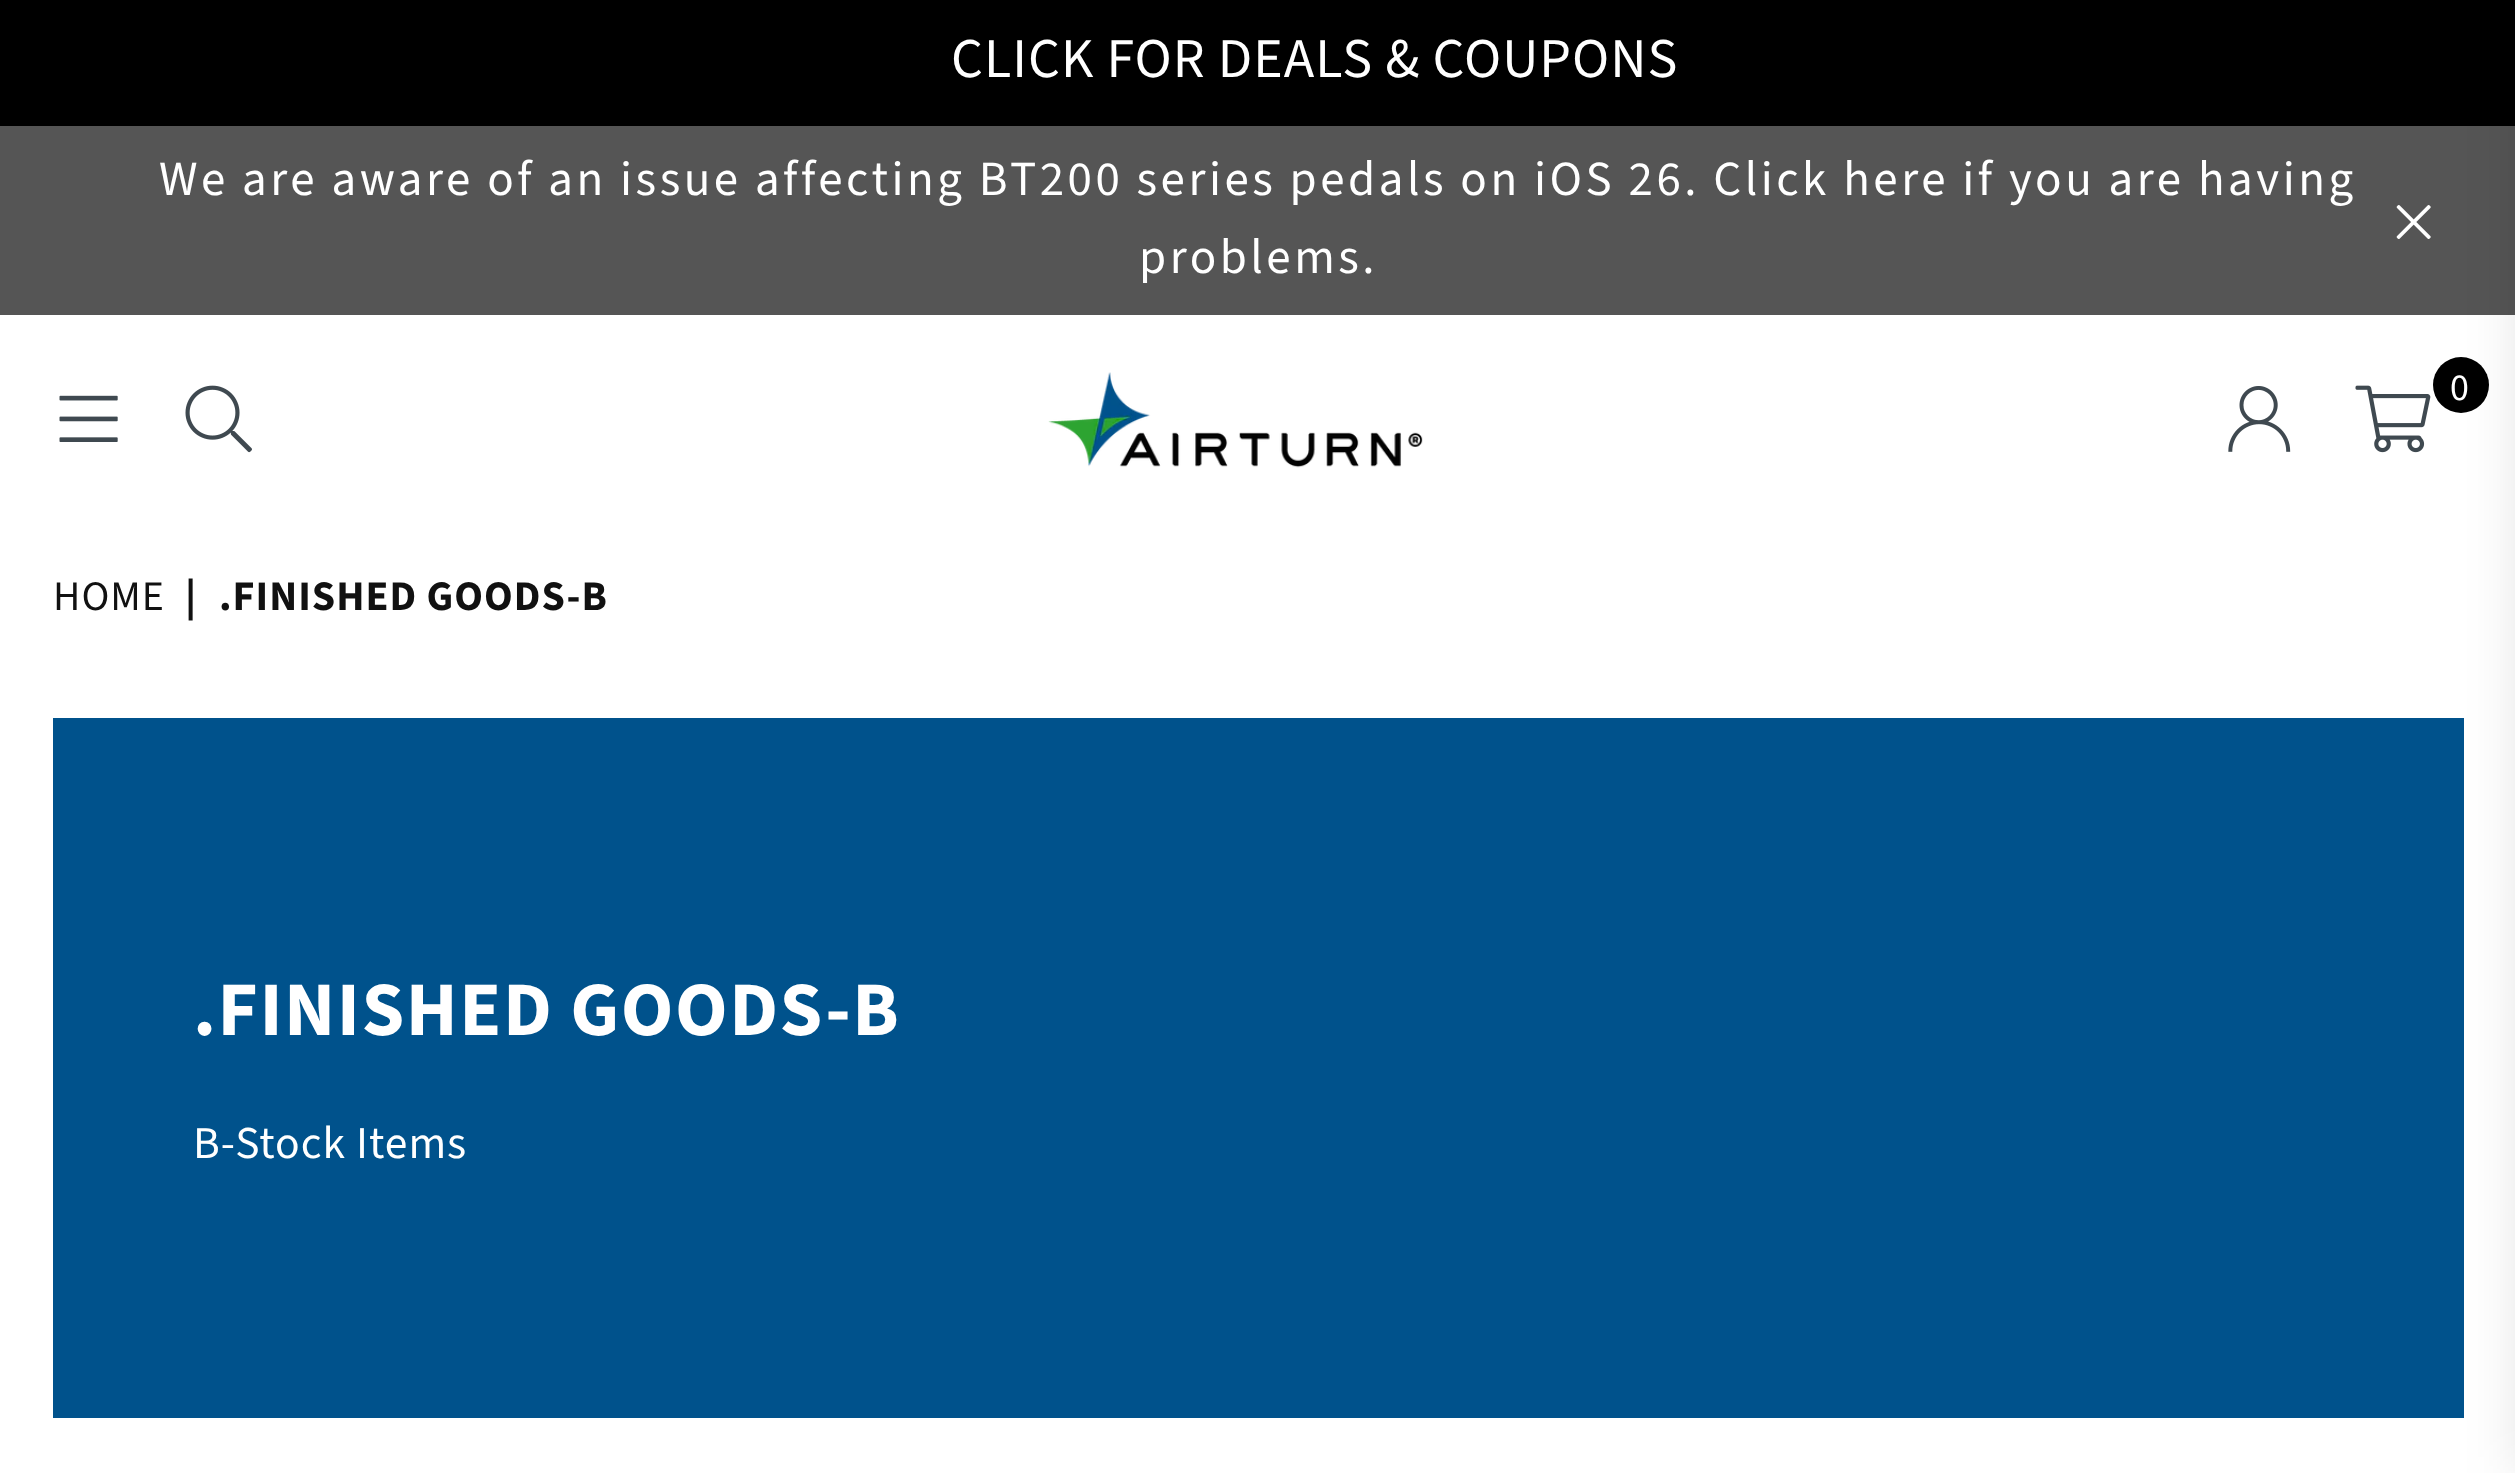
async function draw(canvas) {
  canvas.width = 2515;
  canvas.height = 1473;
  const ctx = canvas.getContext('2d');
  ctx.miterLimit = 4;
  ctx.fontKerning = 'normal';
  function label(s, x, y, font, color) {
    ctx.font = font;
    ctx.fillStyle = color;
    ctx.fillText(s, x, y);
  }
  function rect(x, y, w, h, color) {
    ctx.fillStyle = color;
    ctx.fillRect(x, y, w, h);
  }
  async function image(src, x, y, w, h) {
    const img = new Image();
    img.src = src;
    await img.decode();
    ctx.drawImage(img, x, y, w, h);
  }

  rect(0, 0, 2515, 1473, '#fff');
  rect(0, 0, 2515, 126, '#000');
  ctx.letterSpacing = '1px';
  label('CLICK FOR DEALS & COUPONS', 951, 77, '56px Source Sans Pro', '#fff');
  rect(0, 126, 2515, 189, '#555');
  ctx.fillStyle = '#000';
  ctx.beginPath();
  ctx.arc(2461, 385, 28, 0, 2 * Math.PI);
  ctx.fill();
  rect(53, 718, 2411, 700, '#00528c');
  ctx.fillStyle = '#0000001a';
  ctx.filter = 'blur(26px)';
  ctx.beginPath();
  ctx.rect(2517, 0, 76, 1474);
  ctx.fill();
  ctx.filter = 'none';
  ctx.letterSpacing = '3.5px';
  label('We are aware of an issue affecting BT200 series pedals on iOS 26. Click here if you are having', 159, 195, '49px Source Sans Pro', '#fff');
  label('problems.', 1139, 273, '49px Source Sans Pro', '#fff');
  await image('assets/img1.png', 2396, 205, 35, 34);
  await image('assets/img2.png', 59, 395, 59, 47);
  await image('assets/img3.png', 185, 385, 67, 68);
  await image('assets/img4.png', 1048, 372, 375, 96);
  await image('assets/img5.png', 2228, 386, 63, 66);
  await image('assets/img6.png', 2355, 385, 76, 68);
  ctx.letterSpacing = '1px';
  label('0', 2450, 400, '38px Source Sans Pro', '#fff');
  label('HOME', 53, 610, '42px Source Sans Pro', '#111');
  label('|', 185, 610, 'bold 42px Source Sans Pro', '#111');
  label('.FINISHED GOODS-B', 219, 610, 'bold 42px Source Sans Pro', '#111');
  ctx.letterSpacing = '1.5px';
  label('.FINISHED GOODS-B', 193, 1035, 'bold 77px Source Sans Pro', '#fff');
  ctx.letterSpacing = '1px';
  label('B-Stock Items', 193, 1158, '45.5px Source Sans Pro', '#fff');
}

draw(document.querySelector('canvas'));
